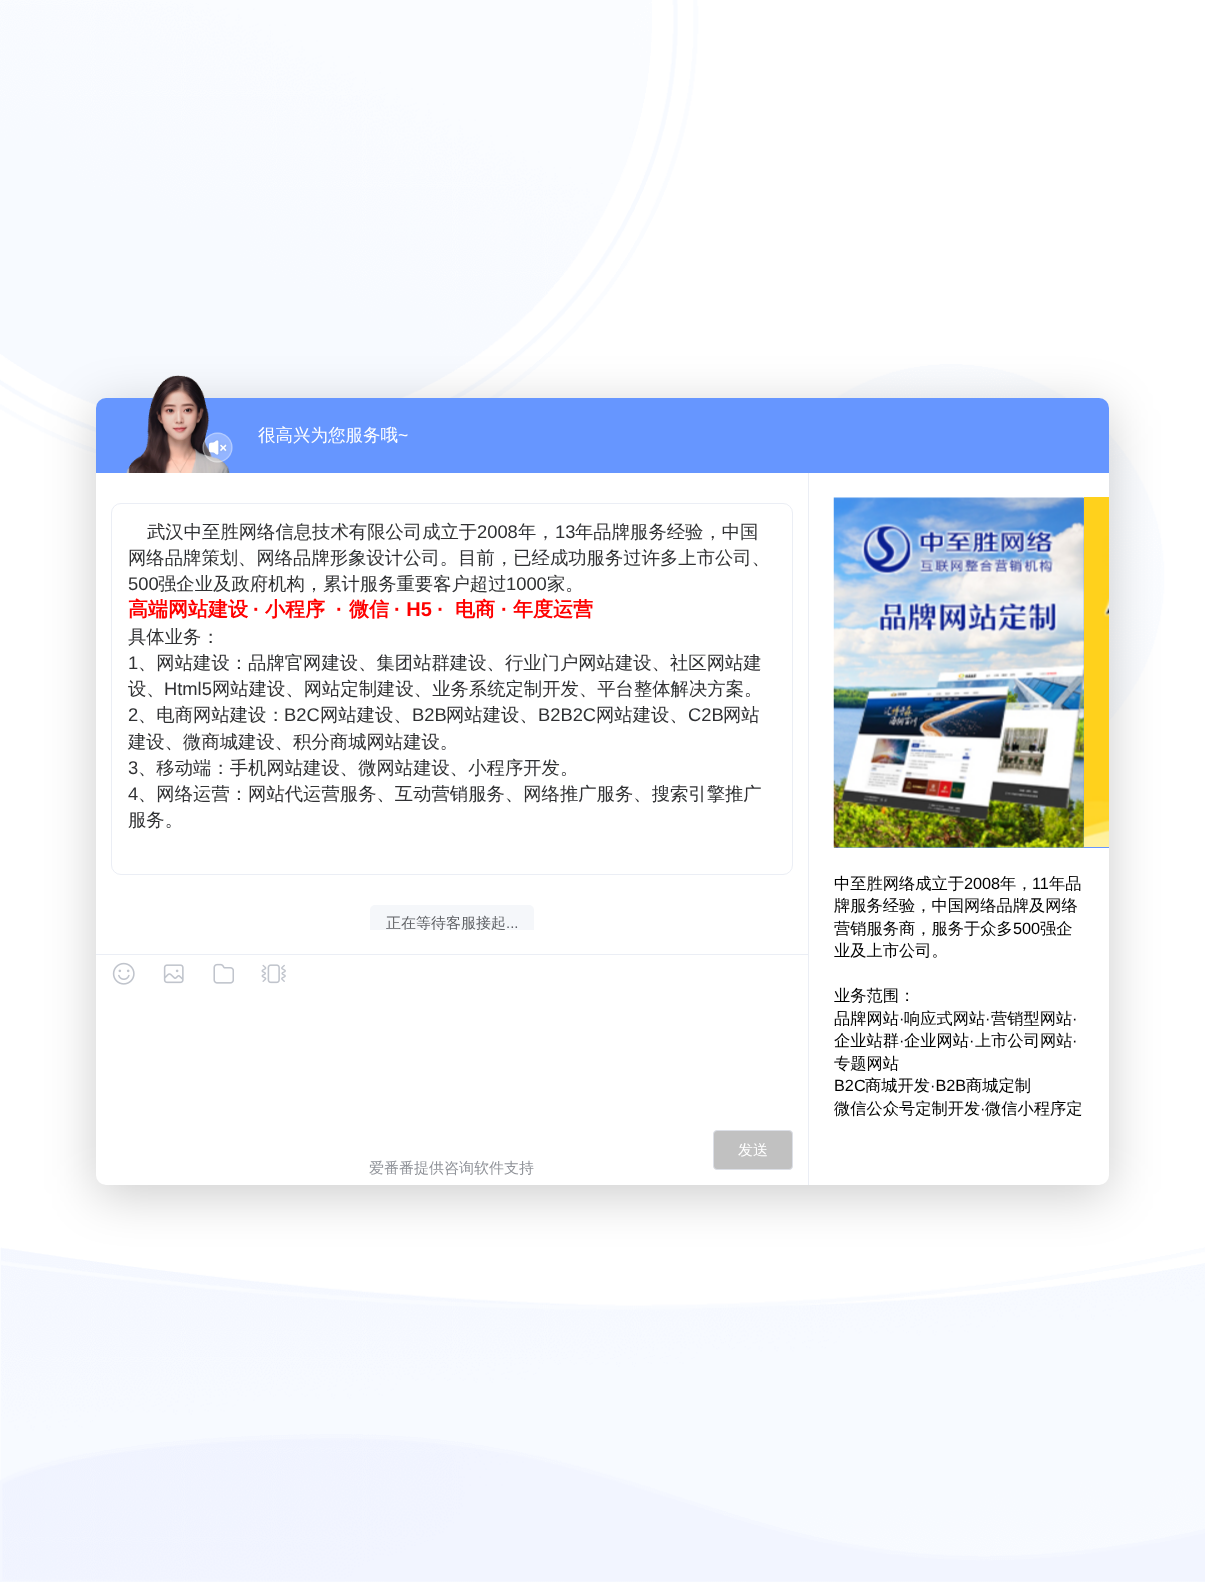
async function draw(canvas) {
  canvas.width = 1205;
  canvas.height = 1582;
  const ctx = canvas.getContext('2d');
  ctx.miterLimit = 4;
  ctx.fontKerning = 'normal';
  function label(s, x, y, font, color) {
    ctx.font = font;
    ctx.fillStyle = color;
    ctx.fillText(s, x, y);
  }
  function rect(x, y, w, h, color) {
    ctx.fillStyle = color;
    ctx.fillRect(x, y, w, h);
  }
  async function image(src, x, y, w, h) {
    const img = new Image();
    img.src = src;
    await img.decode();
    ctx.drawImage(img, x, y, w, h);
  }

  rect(0, 0, 1205, 1582, '#fff');
  await image('assets/img1.png', 0, 0, 1205, 1582);
  ctx.fillStyle = '#00000033';
  ctx.filter = 'blur(25px)';
  ctx.beginPath();
  ctx.roundRect(96, 408, 1013, 787, 10);
  ctx.fill();
  ctx.filter = 'none';
  ctx.fillStyle = '#6696ff';
  ctx.beginPath();
  ctx.roundRect(96, 398, 1013, 75, [10, 10, 0, 0]);
  ctx.fill();
  await image('assets/img2.png', 126, 375, 104, 98);
  label('很高兴为您服务哦', 258, 441, '500 17.5px WenQuanYi Zen Hei', '#fff');
  label('~', 398, 441, '17.5px Liberation Sans', '#fff');
  await image('assets/img3.png', 202, 432, 31, 31);
  ctx.beginPath();
  ctx.roundRect(96, 473, 712, 712, [0, 0, 0, 10]);
  ctx.fill();
  ctx.beginPath();
  ctx.roundRect(111.5, 503.5, 681, 371, 9.5);
  ctx.strokeStyle = '#ebeef5';
  ctx.stroke();
  label('武汉中至胜网络信息技术有限公司成立于', 147, 538, '500 18.35px WenQuanYi Zen Hei', '#303133');
  label('2008', 477, 538, '18.35px Liberation Sans', '#303133');
  label('年，', 518, 538, '500 18.35px WenQuanYi Zen Hei', '#303133');
  label('13', 555, 538, '18.35px Liberation Sans', '#303133');
  label('年品牌服务经验，中国', 575, 538, '500 18.35px WenQuanYi Zen Hei', '#303133');
  label('网络品牌策划、网络品牌形象设计公司。目前，已经成功服务过许多上市公司、', 128, 564, '500 18.35px WenQuanYi Zen Hei', '#303133');
  label('500', 128, 590, '18.35px Liberation Sans', '#303133');
  label('强企业及政府机构，累计服务重要客户超过', 158, 590, '500 18.35px WenQuanYi Zen Hei', '#303133');
  label('1000', 506, 590, '18.35px Liberation Sans', '#303133');
  label('家。', 547, 590, '500 18.35px WenQuanYi Zen Hei', '#303133');
  label('高端网站建设', 128, 616, 'bold 20px WenQuanYi Zen Hei', '#fe0100');
  label('·', 253, 616, 'bold 20px Liberation Sans', '#fe0100');
  label('小程序', 265, 616, 'bold 20px WenQuanYi Zen Hei', '#fe0100');
  label('·', 336, 616, 'bold 20px Liberation Sans', '#fe0100');
  label('微信', 349, 616, 'bold 20px WenQuanYi Zen Hei', '#fe0100');
  label('· H5 ·', 394, 616, 'bold 20px Liberation Sans', '#fe0100');
  label('电商', 455, 616, 'bold 20px WenQuanYi Zen Hei', '#fe0100');
  label('·', 501, 616, 'bold 20px Liberation Sans', '#fe0100');
  label('年度运营', 513, 616, 'bold 20px WenQuanYi Zen Hei', '#fe0100');
  label('具体业务：', 128, 643, '500 18.35px WenQuanYi Zen Hei', '#303133');
  label('1', 128, 669, '18.35px Liberation Sans', '#303133');
  label('、网站建设：品牌官网建设、集团站群建设、行业门户网站建设、社区网站建', 138, 669, '500 18.35px WenQuanYi Zen Hei', '#303133');
  label('设、', 128, 695, '500 18.35px WenQuanYi Zen Hei', '#303133');
  label('Html5', 164, 695, '18.35px Liberation Sans', '#303133');
  label('网站建设、网站定制建设、业务系统定制开发、平台整体解决方案。', 212, 695, '500 18.35px WenQuanYi Zen Hei', '#303133');
  label('2', 128, 721, '18.35px Liberation Sans', '#303133');
  label('、电商网站建设：', 138, 721, '500 18.35px WenQuanYi Zen Hei', '#303133');
  label('B2C', 284, 721, '18.35px Liberation Sans', '#303133');
  label('网站建设、', 320, 721, '500 18.35px WenQuanYi Zen Hei', '#303133');
  label('B2B', 412, 721, '18.35px Liberation Sans', '#303133');
  label('网站建设、', 446, 721, '500 18.35px WenQuanYi Zen Hei', '#303133');
  label('B2B2C', 538, 721, '18.35px Liberation Sans', '#303133');
  label('网站建设、', 596, 721, '500 18.35px WenQuanYi Zen Hei', '#303133');
  label('C2B', 688, 721, '18.35px Liberation Sans', '#303133');
  label('网站', 723, 721, '500 18.35px WenQuanYi Zen Hei', '#303133');
  label('建设、微商城建设、积分商城网站建设。', 128, 748, '500 18.35px WenQuanYi Zen Hei', '#303133');
  label('3', 128, 774, '18.35px Liberation Sans', '#303133');
  label('、移动端：手机网站建设、微网站建设、小程序开发。', 138, 774, '500 18.35px WenQuanYi Zen Hei', '#303133');
  label('4', 128, 800, '18.35px Liberation Sans', '#303133');
  label('、网络运营：网站代运营服务、互动营销服务、网络推广服务、搜索引擎推广', 138, 800, '500 18.35px WenQuanYi Zen Hei', '#303133');
  label('服务。', 128, 826, '500 18.35px WenQuanYi Zen Hei', '#303133');
  ctx.fillStyle = '#f5f7fa';
  ctx.beginPath();
  ctx.roundRect(370, 905, 164, 25, [5, 5, 0, 0]);
  ctx.fill();
  label('正在等待客服接起', 386, 928, '500 15px WenQuanYi Zen Hei', '#606266');
  label('...', 506, 928, '15px Liberation Sans', '#606266');
  rect(96, 954, 712, 1, '#ebeef5');
  await image('assets/img4.png', 112, 962, 23, 23);
  await image('assets/img5.png', 163, 964, 21, 20);
  await image('assets/img6.png', 213, 963, 21, 21);
  await image('assets/img7.png', 261, 964, 25, 20);
  ctx.fillStyle = '#c1c1c1';
  ctx.beginPath();
  ctx.roundRect(713.5, 1130.5, 79, 39, 3.5);
  ctx.fill();
  ctx.strokeStyle = '#dcdfe6';
  ctx.stroke();
  label('发送', 738, 1155, '500 15px WenQuanYi Zen Hei', '#fff');
  label('爱番番提供咨询软件支持', 369, 1173, '500 15px WenQuanYi Zen Hei', '#909399');
  ctx.fillStyle = '#fff';
  ctx.beginPath();
  ctx.roundRect(808, 473, 301, 712, [0, 0, 10, 0]);
  ctx.fill();
  rect(808, 473, 1, 712, '#ebeef5');
  rect(834, 498, 250, 350, '#6696ff');
  await image('assets/img8.png', 833, 497, 251, 351);
  await image('assets/img9.png', 1084, 497, 25, 350);
  rect(1084, 847, 25, 1, '#6696ff');
  label('中至胜网络成立于', 834, 889, '500 16.25px WenQuanYi Zen Hei', '#000');
  label('2008', 964, 889, '16.25px Liberation Sans', '#000');
  label('年，', 1000, 889, '500 16.25px WenQuanYi Zen Hei', '#000');
  label('11', 1032, 889, '16.25px Liberation Sans', '#000');
  label('年品', 1049, 889, '500 16.25px WenQuanYi Zen Hei', '#000');
  label('牌服务经验，中国网络品牌及网络', 834, 911, '500 16.25px WenQuanYi Zen Hei', '#000');
  label('营销服务商，服务于众多', 834, 934, '500 16.25px WenQuanYi Zen Hei', '#000');
  label('500', 1013, 934, '16.25px Liberation Sans', '#000');
  label('强企', 1040, 934, '500 16.25px WenQuanYi Zen Hei', '#000');
  label('业及上市公司。', 834, 956, '500 16.25px WenQuanYi Zen Hei', '#000');
  label('业务范围：', 834, 1001, '500 16.25px WenQuanYi Zen Hei', '#000');
  label('品牌网站', 834, 1024, '500 16.25px WenQuanYi Zen Hei', '#000');
  label('·', 899, 1024, '16.25px Liberation Sans', '#000');
  label('响应式网站', 904, 1024, '500 16.25px WenQuanYi Zen Hei', '#000');
  label('·', 985, 1024, '16.25px Liberation Sans', '#000');
  label('营销型网站', 991, 1024, '500 16.25px WenQuanYi Zen Hei', '#000');
  label('·', 1072, 1024, '16.25px Liberation Sans', '#000');
  label('企业站群', 834, 1046, '500 16.25px WenQuanYi Zen Hei', '#000');
  label('·', 899, 1046, '16.25px Liberation Sans', '#000');
  label('企业网站', 904, 1046, '500 16.25px WenQuanYi Zen Hei', '#000');
  label('·', 969, 1046, '16.25px Liberation Sans', '#000');
  label('上市公司网站', 975, 1046, '500 16.25px WenQuanYi Zen Hei', '#000');
  label('·', 1072, 1046, '16.25px Liberation Sans', '#000');
  label('专题网站', 834, 1069, '500 16.25px WenQuanYi Zen Hei', '#000');
  label('B2C', 834, 1091, '16.25px Liberation Sans', '#000');
  label('商城开发', 865, 1091, '500 16.25px WenQuanYi Zen Hei', '#000');
  label('·B2B', 930, 1091, '16.25px Liberation Sans', '#000');
  label('商城定制', 966, 1091, '500 16.25px WenQuanYi Zen Hei', '#000');
  label('微信公众号定制开发', 834, 1114, '500 16.25px WenQuanYi Zen Hei', '#000');
  label('·', 980, 1114, '16.25px Liberation Sans', '#000');
  label('微信小程序定', 985, 1114, '500 16.25px WenQuanYi Zen Hei', '#000');
}

draw(document.querySelector('canvas'));
